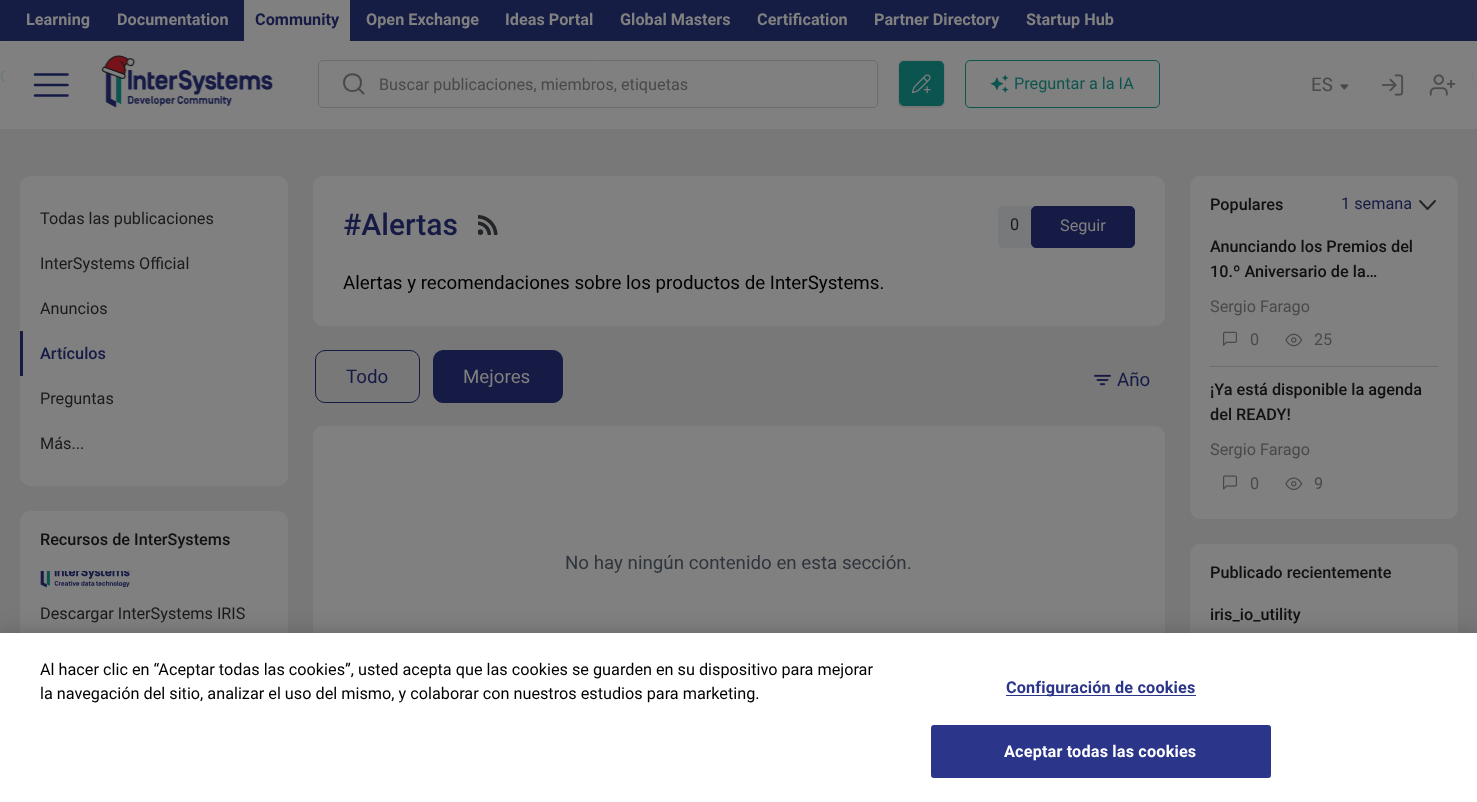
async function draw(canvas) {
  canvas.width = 1477;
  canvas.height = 802;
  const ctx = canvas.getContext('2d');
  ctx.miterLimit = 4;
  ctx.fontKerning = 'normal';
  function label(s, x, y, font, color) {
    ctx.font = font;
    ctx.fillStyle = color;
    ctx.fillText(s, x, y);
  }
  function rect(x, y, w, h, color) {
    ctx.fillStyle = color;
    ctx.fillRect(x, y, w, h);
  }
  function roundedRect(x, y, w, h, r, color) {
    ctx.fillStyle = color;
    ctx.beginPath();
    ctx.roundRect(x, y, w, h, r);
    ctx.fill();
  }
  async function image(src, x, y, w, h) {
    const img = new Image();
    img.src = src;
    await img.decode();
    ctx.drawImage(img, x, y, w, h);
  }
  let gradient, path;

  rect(0, 0, 1477, 802, '#787879');
  rect(0, 41, 1477, 88, '#808080');
  await image('assets/img1.png', 1, 41, 1473, 77);
  rect(0, 0, 1477, 41, '#151d44');
  label('Learning', 26, 25, 'bold 16.25px Roboto', '#808080');
  label('Documentation', 117, 25, 'bold 16.25px Roboto', '#808080');
  rect(244, 0, 106, 41, '#808080');
  label('Community', 255, 25, 'bold 16.25px Roboto', '#161b45');
  label('Open Exchange', 366, 25, 'bold 16.25px Roboto', '#808080');
  label('Ideas Portal', 505, 25, 'bold 16.25px Roboto', '#808080');
  label('Global Masters', 620, 25, 'bold 16.25px Roboto', '#808080');
  label('Certification', 757, 25, 'bold 16.25px Roboto', '#808080');
  label('Partner Directory', 874, 25, 'bold 16.25px Roboto', '#808080');
  label('Startup Hub', 1026, 25, 'bold 16.25px Roboto', '#808080');
  rect(8, 41, 1462, 77, '#808080');
  gradient = ctx.createLinearGradient(7.5, 85, -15, 85);
  gradient.addColorStop(0, '#808080');
  gradient.addColorStop(1, '#80808000');
  ctx.fillStyle = gradient;
  ctx.fillRect(1, 41, 7, 77);
  path = new Path2D('M35 85H67.5M35 74.5H67.5M35 95.5H67.5');
  ctx.strokeStyle = '#161b45';
  ctx.lineWidth = 2.5;
  ctx.lineCap = 'round';
  ctx.lineJoin = 'round';
  ctx.stroke(path);
  await image('assets/img2.png', 101, 55, 172, 53);
  path = new Path2D('M363.5 93.5L358.5 88.5M361 82.5C361 94 344 94 344 82.5C344 71.5 361 71.5 361 82.5Z');
  ctx.strokeStyle = '#494949';
  ctx.lineWidth = 1.9;
  ctx.stroke(path);
  ctx.beginPath();
  ctx.roundRect(318.5, 60.5, 559, 47, 4.5);
  ctx.strokeStyle = '#6c6c6c';
  ctx.lineWidth = 1;
  ctx.lineJoin = 'miter';
  ctx.stroke();
  label('Buscar publicaciones, miembros, etiquetas', 379, 90, '16.25px Roboto', '#494949');
  roundedRect(898, 60, 47, 48, 5, '#787878');
  await image('assets/img3.png', 899, 61, 45, 45);
  await image('assets/img4.png', 990, 74, 19, 19);
  ctx.beginPath();
  ctx.roundRect(965.5, 60.5, 194, 47, 4.5);
  ctx.strokeStyle = '#0c554f';
  ctx.stroke();
  label('Preguntar a la IA', 1014, 89, '16.25px Roboto', '#0c554f');
  label('ES', 1311, 91, '18.75px Roboto', '#494949');
  await image('assets/img5.png', 1340, 84, 9, 6);
  await image('assets/img6.png', 1382, 74, 22, 22);
  await image('assets/img7.png', 1429, 74, 27, 22);
  gradient = ctx.createLinearGradient(1470, 85, 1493, 85);
  gradient.addColorStop(0, '#808080');
  gradient.addColorStop(1, '#80808000');
  ctx.fillStyle = gradient;
  ctx.fillRect(1470, 41, 4, 76);
  roundedRect(20, 176, 268, 310, 10, '#808080');
  label('Todas las publicaciones', 40, 224, '16.25px Roboto', '#1a1a1a');
  label('InterSystems Official', 40, 269, '16.25px Roboto', '#1a1a1a');
  label('Anuncios', 40, 314, '16.25px Roboto', '#1a1a1a');
  rect(20, 331, 3, 45, '#161b45');
  label('Artículos', 40, 359, '500 16.25px Roboto', '#161b45');
  label('Preguntas', 40, 404, '16.25px Roboto', '#1a1a1a');
  label('Más...', 40, 449, '16.25px Roboto', '#1a1a1a');
  roundedRect(20, 511, 268, 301, 10, '#808080');
  label('Recursos de InterSystems', 40, 545, '500 16.25px Roboto', '#111');
  await image('assets/img8.png', 40, 571, 92, 17);
  label('Descargar InterSystems IRIS', 40, 619, '16.25px Roboto', '#1a1a1a');
  roundedRect(313, 176, 852, 150, 10, '#808080');
  label('#Alertas', 343, 235, '500 30px Roboto', '#161b45');
  await image('assets/img9.png', 478, 215, 20, 20);
  roundedRect(998, 206, 137, 42, 5, '#78797a');
  label('0', 1010, 230, '16.25px Roboto', '#1a1a1a');
  ctx.fillStyle = '#161b45';
  ctx.beginPath();
  ctx.roundRect(1031.5, 206.5, 103, 41, 4.5);
  ctx.fill();
  ctx.strokeStyle = '#161b45';
  ctx.stroke();
  label('Seguir', 1060, 231, '16.25px Roboto', '#808080');
  label('Alertas y recomendaciones sobre los productos de InterSystems.', 343, 289, '18.75px Roboto', '#000');
  ctx.beginPath();
  ctx.roundRect(315.5, 350.5, 104, 52, 9.5);
  ctx.stroke();
  label('Todo', 346, 383, '18.75px Roboto', '#161b45');
  ctx.beginPath();
  ctx.roundRect(433.5, 350.5, 129, 52, 9.5);
  ctx.fill();
  ctx.stroke();
  label('Mejores', 463, 383, '18.75px Roboto', '#808080');
  await image('assets/img10.png', 1094, 374, 17, 12);
  label('Año', 1117, 386, '18.75px Roboto', '#161b45');
  roundedRect(313, 426, 852, 275, 10, '#808080');
  label('No hay ningún contenido en esta sección.', 565, 569, '18.75px Roboto', '#2f353c');
  roundedRect(1190, 176, 268, 343, 10, '#808080');
  label('Populares', 1210, 210, '500 16.25px Roboto', '#111');
  label('1 semana', 1341, 209, '16.25px Roboto', '#161b45');
  path = new Path2D('M1435 201L1427.5 209L1420 201');
  ctx.strokeStyle = '#222426';
  ctx.lineWidth = 1.9;
  ctx.lineJoin = 'round';
  ctx.stroke(path);
  label('Anunciando los Premios del', 1210, 252, '500 16.25px Roboto', '#111');
  label('10.º Aniversario de la…', 1210, 277, '500 16.25px Roboto', '#111');
  label('Sergio Farago', 1210, 312, '16.25px Roboto', '#494949');
  await image('assets/img11.png', 1223, 331, 14, 15);
  label('0', 1250, 345, '16.25px Roboto', '#494949');
  await image('assets/img12.png', 1285, 333, 18, 14);
  label('25', 1314, 345, '16.25px Roboto', '#494949');
  rect(1210, 366, 228, 1, '#6d6e6e');
  label('¡Ya está disponible la agenda', 1210, 395, '500 16.25px Roboto', '#111');
  label('del READY!', 1210, 420, '500 16.25px Roboto', '#111');
  label('Sergio Farago', 1210, 455, '16.25px Roboto', '#494949');
  await image('assets/img13.png', 1223, 475, 14, 15);
  label('0', 1250, 489, '16.25px Roboto', '#494949');
  await image('assets/img14.png', 1285, 477, 18, 13);
  label('9', 1314, 489, '16.25px Roboto', '#494949');
  roundedRect(1190, 544, 268, 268, 10, '#808080');
  label('Publicado recientemente', 1210, 578, '500 16.25px Roboto', '#111');
  label('iris_io_utility', 1210, 620, '500 16.25px Roboto', '#111');
  ctx.fillStyle = '#00000033';
  ctx.filter = 'blur(11px)';
  ctx.beginPath();
  ctx.rect(0, 633, 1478, 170);
  ctx.fill();
  ctx.filter = 'none';
  rect(0, 633, 1477, 169, '#fff');
  label('Al hacer clic en “Aceptar todas las cookies”, usted acepta que las cookies se guarden en su dispositivo para mejorar', 40, 675, '16.25px Roboto', '#000');
  label('la navegación del sitio, analizar el uso del mismo, y colaborar con nuestros estudios para marketing.', 40, 699, '16.25px Roboto', '#000');
  rect(1006, 695, 190, 1, '#2b3589');
  ctx.letterSpacing = '0.15px';
  label('Configuración de cookies', 1006, 693, 'bold 16.25px Roboto', '#2b3589');
  ctx.beginPath();
  ctx.roundRect(931.5, 725.5, 339, 52, 2);
  ctx.fill();
  ctx.strokeStyle = '#2b3589';
  ctx.lineWidth = 1;
  ctx.lineJoin = 'miter';
  ctx.stroke();
  label('Aceptar todas las cookies', 1004, 757, 'bold 16.25px Roboto', '#fff');
}

draw(document.querySelector('canvas'));
